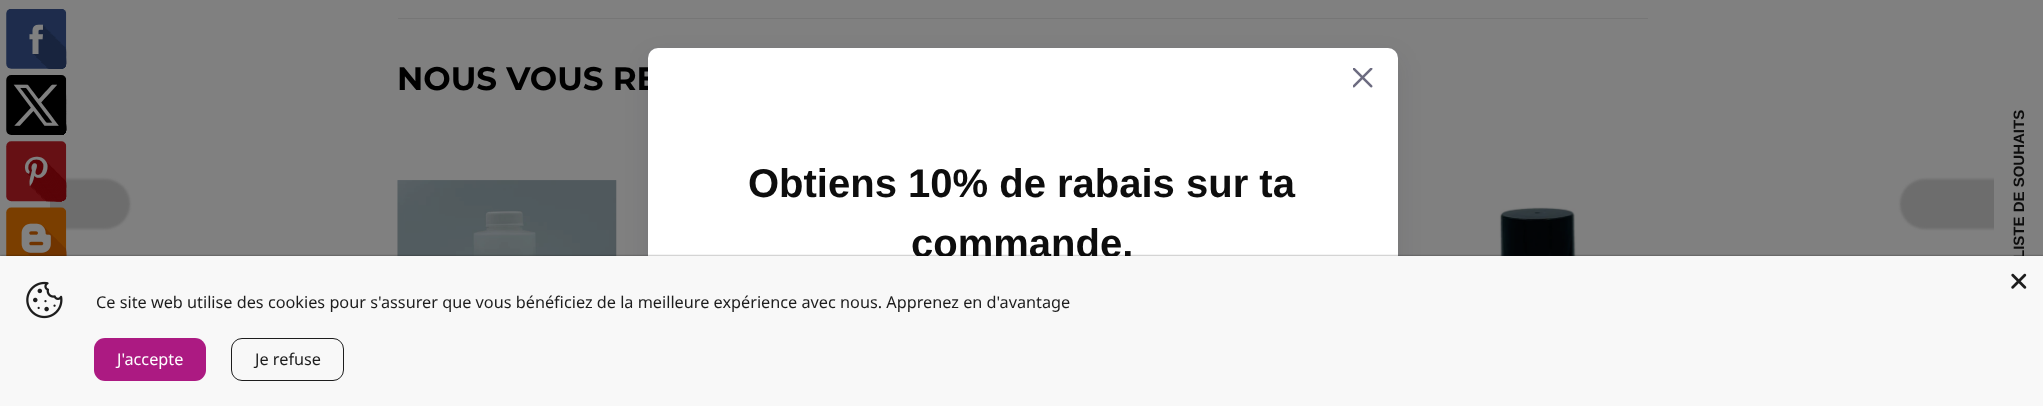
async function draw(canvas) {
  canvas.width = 2043;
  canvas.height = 406;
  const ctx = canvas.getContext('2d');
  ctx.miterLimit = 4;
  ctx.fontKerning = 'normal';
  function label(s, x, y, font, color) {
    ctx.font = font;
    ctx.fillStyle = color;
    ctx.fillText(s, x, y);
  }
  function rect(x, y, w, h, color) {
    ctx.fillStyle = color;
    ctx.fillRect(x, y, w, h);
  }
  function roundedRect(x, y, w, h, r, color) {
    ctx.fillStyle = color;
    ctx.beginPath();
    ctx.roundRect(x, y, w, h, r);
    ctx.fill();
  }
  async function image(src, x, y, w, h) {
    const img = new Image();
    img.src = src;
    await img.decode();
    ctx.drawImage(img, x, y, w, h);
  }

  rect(0, 0, 2043, 406, '#808080');
  ctx.save();
  ctx.beginPath();
  ctx.rect(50, 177, 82, 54);
  ctx.clip();
  ctx.fillStyle = '#6d6d6d';
  ctx.filter = 'blur(1px)';
  ctx.beginPath();
  ctx.roundRect(-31, 179, 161, 50, 28);
  ctx.fill();
  ctx.filter = 'none';
  ctx.restore();
  await image('assets/img1.png', 6, 9, 61, 247);
  rect(398, 18, 1250, 1, '#767676');
  label('NOUS VOUS RE', 397, 90, '100 32.5px Montserrat', '#000');
  await image('assets/img2.png', 397, 180, 220, 76);
  await image('assets/img3.png', 1499, 207, 78, 49);
  ctx.fillStyle = '#1211271a';
  ctx.filter = 'blur(12.5px)';
  ctx.beginPath();
  ctx.roundRect(648, 58, 750, 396, 10);
  ctx.fill();
  ctx.filter = 'none';
  ctx.fillStyle = '#fff';
  ctx.beginPath();
  ctx.roundRect(648, 48, 750, 358, [10, 10, 0, 0]);
  ctx.fill();
  await image('assets/img4.png', 1353, 68, 20, 20);
  label('Obtiens 10% de rabais sur ta', 748, 197, 'bold 40px Liberation Sans', '#0d0d0d');
  label('commande.', 911, 257, 'bold 40px Liberation Sans', '#0d0d0d');
  ctx.save();
  ctx.beginPath();
  ctx.rect(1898, 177, 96, 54);
  ctx.clip();
  ctx.fillStyle = '#6d6d6d';
  ctx.filter = 'blur(1px)';
  ctx.beginPath();
  ctx.roundRect(1900, 179, 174, 50, 28);
  ctx.fill();
  ctx.filter = 'none';
  ctx.restore();
  ctx.font = 'bold 15px Liberation Sans';
  ctx.save();
  ctx.translate(2024, 259);
  ctx.rotate(-90 * Math.PI / 180);
  ctx.fillText('LISTE DE SOUHAITS', 0, 0);
  ctx.restore();
  ctx.fillStyle = '#00000080';
  ctx.filter = 'blur(1px)';
  ctx.beginPath();
  ctx.rect(0, 256, 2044, 150);
  ctx.fill();
  ctx.filter = 'none';
  rect(0, 256, 2043, 150, '#f8f8f8');
  await image('assets/img5.png', 2011, 273, 16, 16);
  await image('assets/img6.png', 26, 281, 37, 38);
  label('Ce site web utilise des cookies pour s\'assurer que vous bénéficiez de la meilleure expérience avec nous. Apprenez en d\'avantage', 96, 308, '16.25px Noto Sans', '#1d1d1d');
  roundedRect(94, 338, 112, 43, 11, '#ac1a82');
  label('J\'accepte', 117, 365, '16.25px Noto Sans', '#fff');
  ctx.beginPath();
  ctx.roundRect(231.5, 338.5, 112, 42, 10.5);
  ctx.strokeStyle = '#1d1d1d';
  ctx.stroke();
  label('Je refuse', 255, 365, '16.25px Noto Sans', '#1d1d1d');
}

draw(document.querySelector('canvas'));
